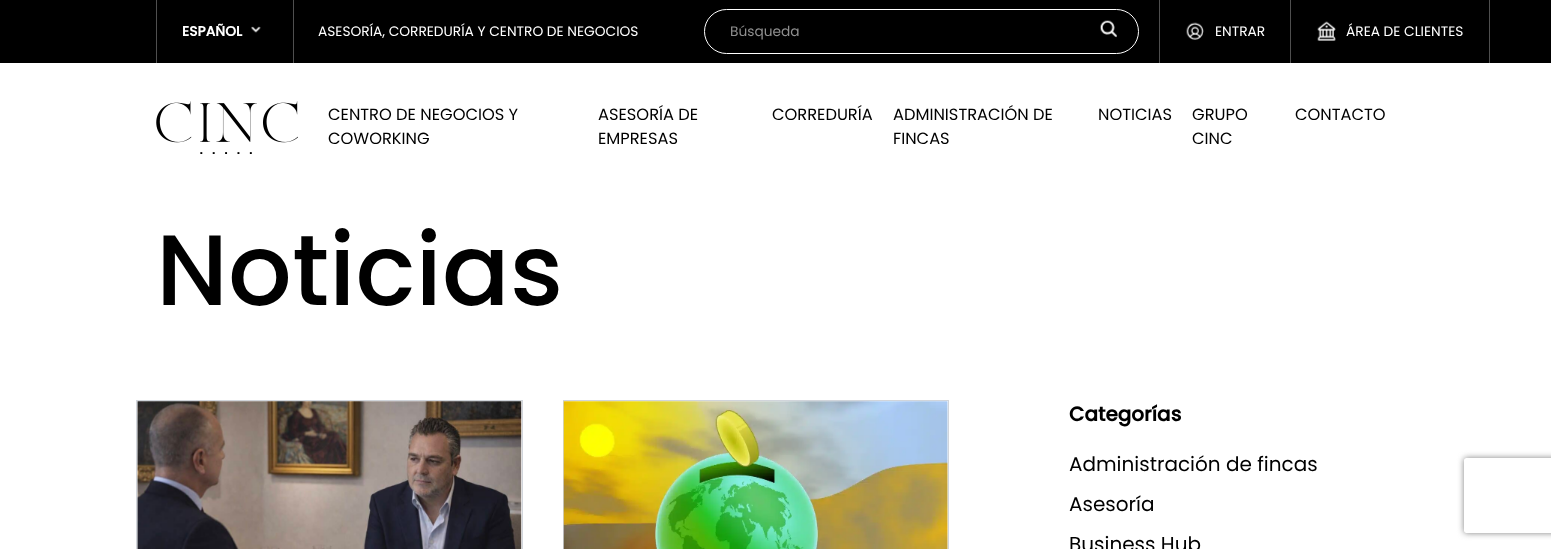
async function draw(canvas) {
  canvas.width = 1551;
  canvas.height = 549;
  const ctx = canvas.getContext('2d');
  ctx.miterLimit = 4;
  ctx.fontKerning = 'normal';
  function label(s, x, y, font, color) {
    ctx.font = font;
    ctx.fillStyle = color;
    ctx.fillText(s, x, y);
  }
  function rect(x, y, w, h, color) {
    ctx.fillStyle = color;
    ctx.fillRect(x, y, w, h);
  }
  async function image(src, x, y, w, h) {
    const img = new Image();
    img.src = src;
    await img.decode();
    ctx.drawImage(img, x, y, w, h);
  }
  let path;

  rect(0, 0, 1551, 549, '#fff');
  rect(0, 0, 1551, 63, '#000');
  rect(293, 0, 1, 63, '#4f4f4f');
  rect(156, 0, 1, 63, '#4f4f4f');
  label('ESPAÑOL', 182, 36, 'bold 13.75px Poppins', '#fff');
  await image('assets/img1.png', 251, 26, 10, 7);
  rect(1159, 0, 1, 63, '#4f4f4f');
  label('ASESORÍA, CORREDURÍA Y CENTRO DE NEGOCIOS', 318, 36, '13.75px Poppins', '#fff');
  ctx.beginPath();
  ctx.roundRect(704.5, 9.5, 434, 44, 22);
  ctx.strokeStyle = '#fff';
  ctx.stroke();
  label('Búsqueda', 730, 36, '13.75px Poppins', '#8f8f8f');
  await image('assets/img2.png', 1100, 20, 17, 18);
  rect(1290, 0, 1, 63, '#4f4f4f');
  await image('assets/img3.png', 1186, 22, 18, 18);
  label('ENTRAR', 1215, 36, '13.75px Poppins', '#fff');
  rect(1489, 0, 1, 63, '#4f4f4f');
  await image('assets/img4.png', 1317, 21, 19, 20);
  label('ÁREA DE CLIENTES', 1346, 36, '13.75px Poppins', '#fff');
  await image('assets/img5.png', 156, 101, 142, 53);
  label('CENTRO DE NEGOCIOS Y', 328, 120, '16.25px Poppins', '#000');
  label('COWORKING', 328, 144, '16.25px Poppins', '#000');
  label('ASESORÍA DE', 598, 120, '16.25px Poppins', '#000');
  label('EMPRESAS', 598, 144, '16.25px Poppins', '#000');
  label('CORREDURÍA', 772, 120, '16.25px Poppins', '#000');
  label('ADMINISTRACIÓN DE', 893, 120, '16.25px Poppins', '#000');
  label('FINCAS', 893, 144, '16.25px Poppins', '#000');
  label('NOTICIAS', 1098, 120, '16.25px Poppins', '#000');
  label('GRUPO', 1192, 120, '16.25px Poppins', '#000');
  label('CINC', 1192, 144, '16.25px Poppins', '#000');
  label('CONTACTO', 1295, 120, '16.25px Poppins', '#000');
  label('Noticias', 156, 305, '500 100px Poppins', '#000');
  ctx.strokeStyle = '#d1d5db';
  ctx.strokeRect(136.5, 400.5, 386, 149);
  await image('assets/img6.png', 137, 401, 385, 148);
  ctx.strokeRect(563.5, 400.5, 385, 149);
  await image('assets/img7.png', 563, 401, 385, 148);
  label('Categorías', 1069, 421, 'bold 20px Poppins', '#000');
  label('Administración de fincas', 1069, 471, '20px Poppins', '#000');
  label('Asesoría', 1069, 511, '20px Poppins', '#000');
  label('Business Hub', 1069, 551, '20px Poppins', '#000');
  ctx.save();
  path = new Path2D('M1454 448H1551V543H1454ZM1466.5 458H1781.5C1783 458 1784 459 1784 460.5V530.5C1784 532 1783 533 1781.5 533H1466.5C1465 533 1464 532 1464 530.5V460.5C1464 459 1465 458 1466.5 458Z');
  ctx.clip(path, 'evenodd');
  ctx.fillStyle = '#808080';
  ctx.filter = 'blur(3px)';
  ctx.beginPath();
  ctx.roundRect(1464, 458, 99, 75, 2.5);
  ctx.fill();
  ctx.filter = 'none';
  ctx.restore();
}

draw(document.querySelector('canvas'));
